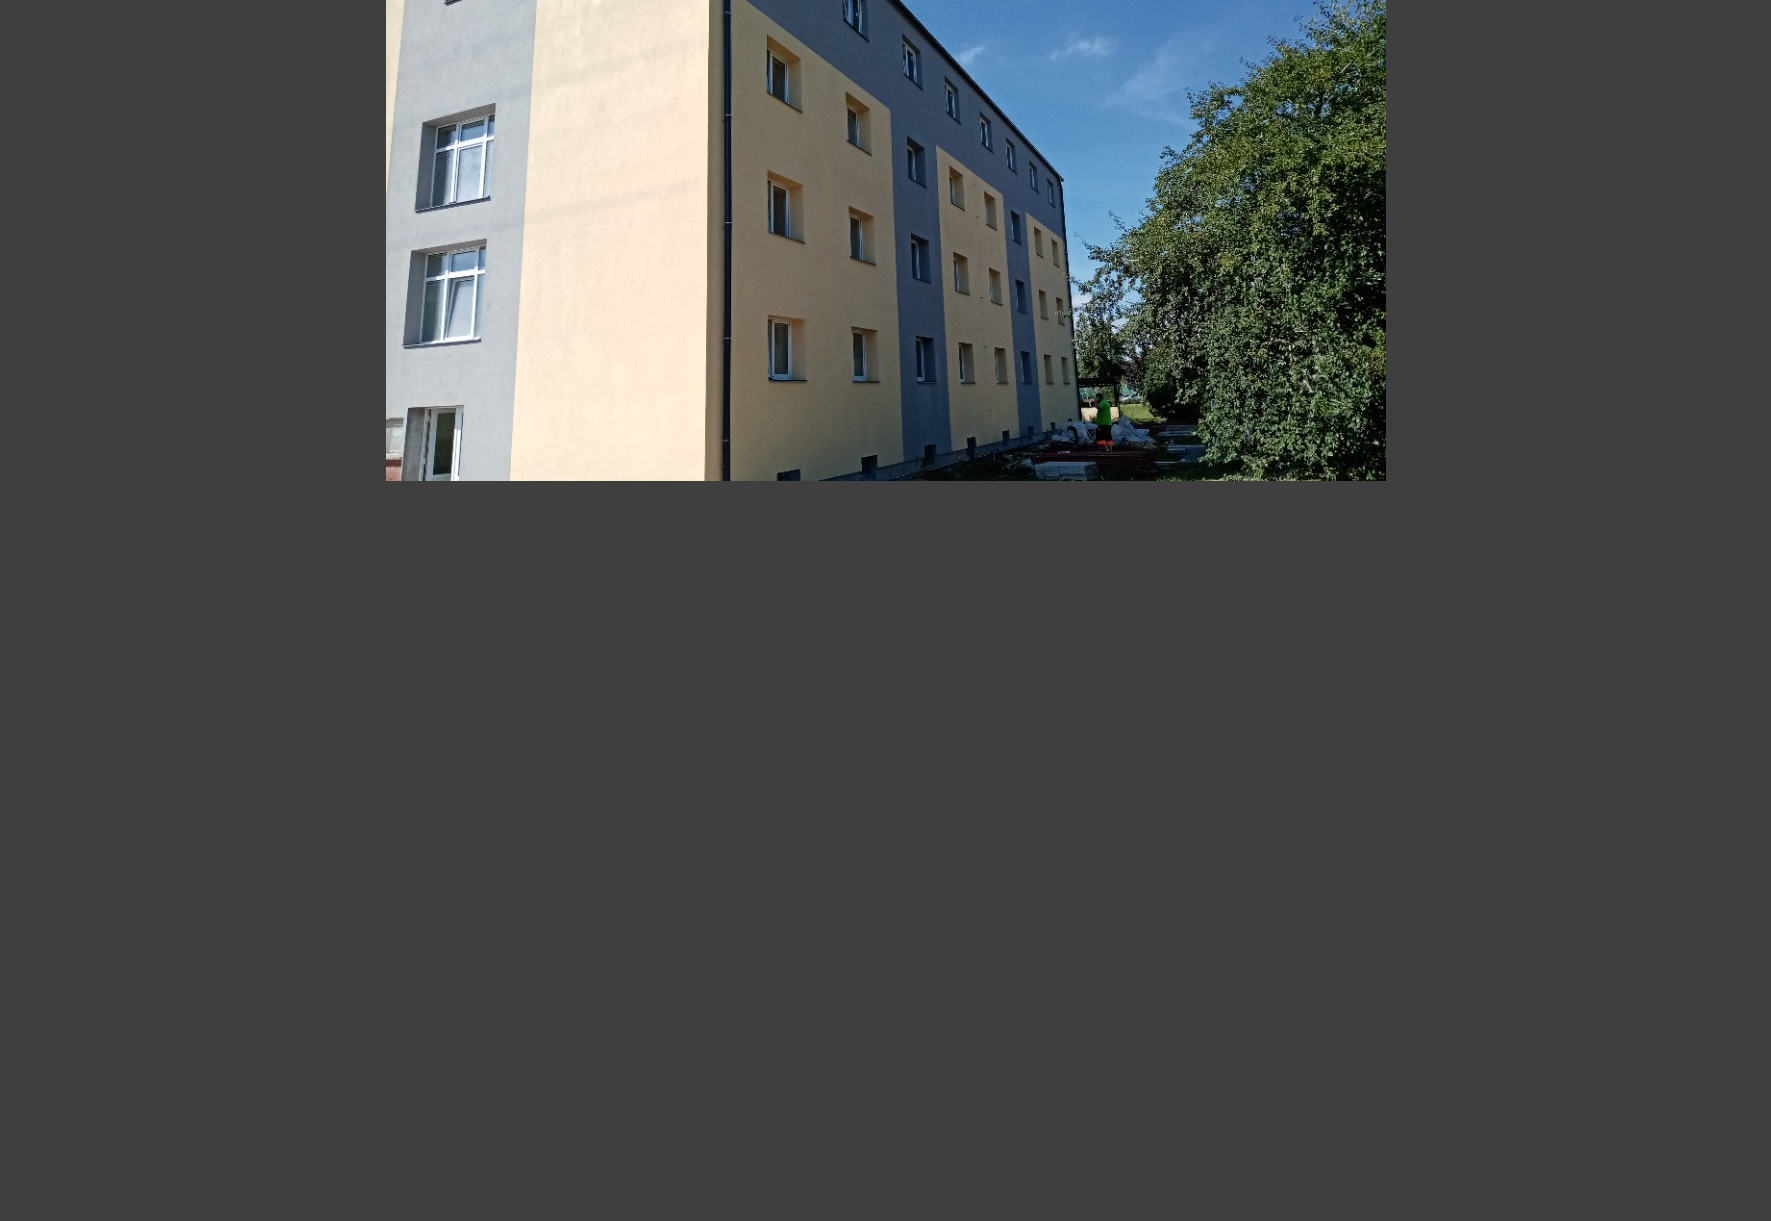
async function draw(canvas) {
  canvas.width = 1771;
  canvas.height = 1221;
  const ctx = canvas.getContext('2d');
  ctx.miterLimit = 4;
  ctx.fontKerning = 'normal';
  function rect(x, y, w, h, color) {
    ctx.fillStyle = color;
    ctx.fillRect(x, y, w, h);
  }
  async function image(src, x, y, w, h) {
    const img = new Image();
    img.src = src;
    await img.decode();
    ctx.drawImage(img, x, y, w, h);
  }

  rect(0, 0, 1771, 1221, '#403f3f');
  await image('assets/img1.png', 386, 0, 1000, 481);
}

draw(document.querySelector('canvas'));
